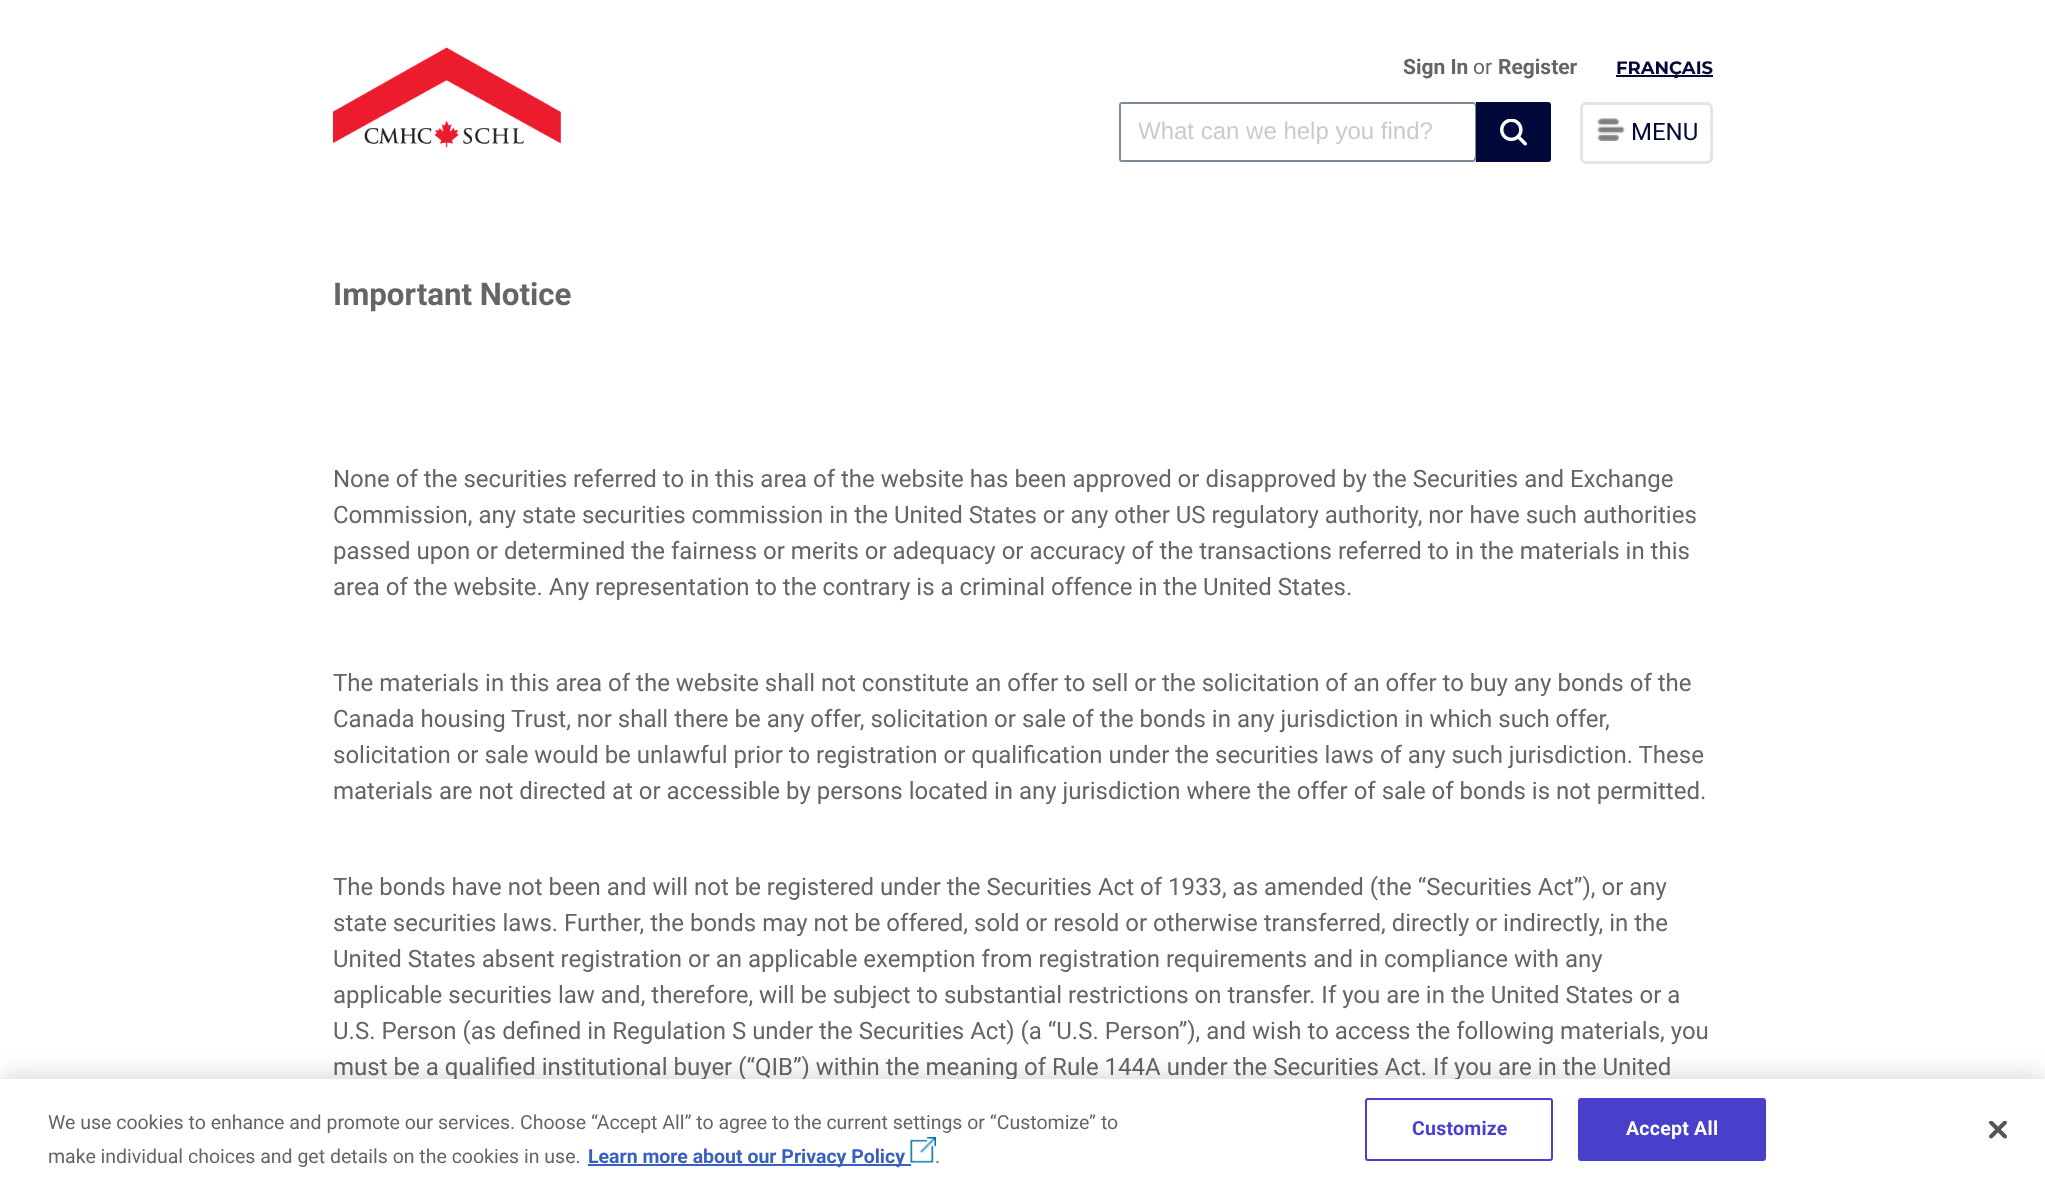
async function draw(canvas) {
  canvas.width = 2045;
  canvas.height = 1186;
  const ctx = canvas.getContext('2d');
  ctx.miterLimit = 4;
  ctx.fontKerning = 'normal';
  function label(s, x, y, font, color) {
    ctx.font = font;
    ctx.fillStyle = color;
    ctx.fillText(s, x, y);
  }
  function rect(x, y, w, h, color) {
    ctx.fillStyle = color;
    ctx.fillRect(x, y, w, h);
  }
  function roundedRect(x, y, w, h, r, color) {
    ctx.fillStyle = color;
    ctx.beginPath();
    ctx.roundRect(x, y, w, h, r);
    ctx.fill();
  }
  async function image(src, x, y, w, h) {
    const img = new Image();
    img.src = src;
    await img.decode();
    ctx.drawImage(img, x, y, w, h);
  }

  rect(0, 0, 2045, 1186, '#fff');
  await image('assets/img1.png', 333, 47, 228, 101);
  label('Sign In', 1403, 74, 'bold 21px Roboto', '#656565');
  label('or', 1473, 74, '21px Roboto', '#656565');
  label('Register', 1498, 74, 'bold 21px Roboto', '#656565');
  rect(1616, 75, 97, 2, '#00093a');
  label('FRANÇAIS', 1616, 74, '100 18px Montserrat', '#00093a');
  ctx.beginPath();
  ctx.roundRect(1120, 103, 355, 58, 2);
  ctx.strokeStyle = '#7e8c9a';
  ctx.lineWidth = 2;
  ctx.stroke();
  roundedRect(1121, 104, 354, 55, 3, '#fff');
  ctx.save();
  ctx.beginPath();
  ctx.rect(1139, 119, 336, 27);
  ctx.clip();
  label('What can we help you find?', 1138, 139, '24px Liberation Sans', '#cacaca');
  ctx.restore();
  ctx.fillStyle = '#00093a';
  ctx.beginPath();
  ctx.roundRect(1477, 103, 73, 58, [0, 2, 2, 0]);
  ctx.fill();
  ctx.strokeStyle = '#00093a';
  ctx.stroke();
  await image('assets/img2.png', 1500, 119, 27, 27);
  ctx.beginPath();
  ctx.roundRect(1581.5, 103.5, 130, 59, 4.5);
  ctx.strokeStyle = '#e5e5e5';
  ctx.lineWidth = 3;
  ctx.stroke();
  await image('assets/img3.png', 1597, 118, 28, 23);
  label('MENU', 1631, 140, '24px Roboto', '#00093a');
  label('Important Notice', 333, 305, 'bold 31.25px Roboto', '#656565');
  label('None of the securities referred to in this area of the website has been approved or disapproved by the Securities and Exchange', 333, 487, '24px Roboto', '#656565');
  label('Commission, any state securities commission in the United States or any other US regulatory authority, nor have such authorities', 333, 523, '24px Roboto', '#656565');
  label('passed upon or determined the fairness or merits or adequacy or accuracy of the transactions referred to in the materials in this', 333, 559, '24px Roboto', '#656565');
  label('area of the website. Any representation to the contrary is a criminal offence in the United States.', 333, 595, '24px Roboto', '#656565');
  label('The materials in this area of the website shall not constitute an offer to sell or the solicitation of an offer to buy any bonds of the', 333, 691, '24px Roboto', '#656565');
  label('Canada housing Trust, nor shall there be any offer, solicitation or sale of the bonds in any jurisdiction in which such offer,', 333, 727, '24px Roboto', '#656565');
  label('solicitation or sale would be unlawful prior to registration or qualification under the securities laws of any such jurisdiction. These', 333, 763, '24px Roboto', '#656565');
  label('materials are not directed at or accessible by persons located in any jurisdiction where the offer of sale of bonds is not permitted.', 333, 799, '24px Roboto', '#656565');
  label('The bonds have not been and will not be registered under the Securities Act of 1933, as amended (the “Securities Act”), or any', 333, 895, '24px Roboto', '#656565');
  label('state securities laws. Further, the bonds may not be offered, sold or resold or otherwise transferred, directly or indirectly, in the', 333, 931, '24px Roboto', '#656565');
  label('United States absent registration or an applicable exemption from registration requirements and in compliance with any', 333, 967, '24px Roboto', '#656565');
  label('applicable securities law and, therefore, will be subject to substantial restrictions on transfer. If you are in the United States or a', 333, 1003, '24px Roboto', '#656565');
  label('U.S. Person (as defined in Regulation S under the Securities Act) (a “U.S. Person”), and wish to access the following materials, you', 333, 1039, '24px Roboto', '#656565');
  label('must be a qualified institutional buyer (“QIB”) within the meaning of Rule 144A under the Securities Act. If you are in the United', 333, 1075, '24px Roboto', '#656565');
  ctx.fillStyle = '#00000033';
  ctx.filter = 'blur(13.5px)';
  ctx.beginPath();
  ctx.rect(0, 1079, 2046, 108);
  ctx.fill();
  ctx.filter = 'none';
  rect(0, 1079, 2045, 107, '#fff');
  label('We use cookies to enhance and promote our services. Choose “Accept All” to agree to the current settings or “Customize” to', 48, 1129, '19.5px Roboto', '#656565');
  label('make individual choices and get details on the cookies in use.', 48, 1163, '19.5px Roboto', '#656565');
  rect(588, 1164, 323, 2, '#3860be');
  label('Learn more about our Privacy Policy', 588, 1163, 'bold 19.5px Roboto', '#3860be');
  await image('assets/img4.png', 910, 1137, 26, 26);
  label('.', 935, 1163, '19.5px Roboto', '#656565');
  ctx.beginPath();
  ctx.roundRect(1366, 1099, 186, 61, 2);
  ctx.strokeStyle = '#483fcd';
  ctx.lineWidth = 2;
  ctx.stroke();
  ctx.letterSpacing = '0.25px';
  label('Customize', 1412, 1135, 'bold 19.5px Roboto', '#483fcd');
  ctx.beginPath();
  ctx.roundRect(1579, 1099, 186, 61, 2);
  ctx.fill();
  ctx.stroke();
  label('Accept All', 1626, 1135, 'bold 19.5px Roboto', '#fff');
  await image('assets/img5.png', 1989, 1121, 18, 18);
}

draw(document.querySelector('canvas'));
